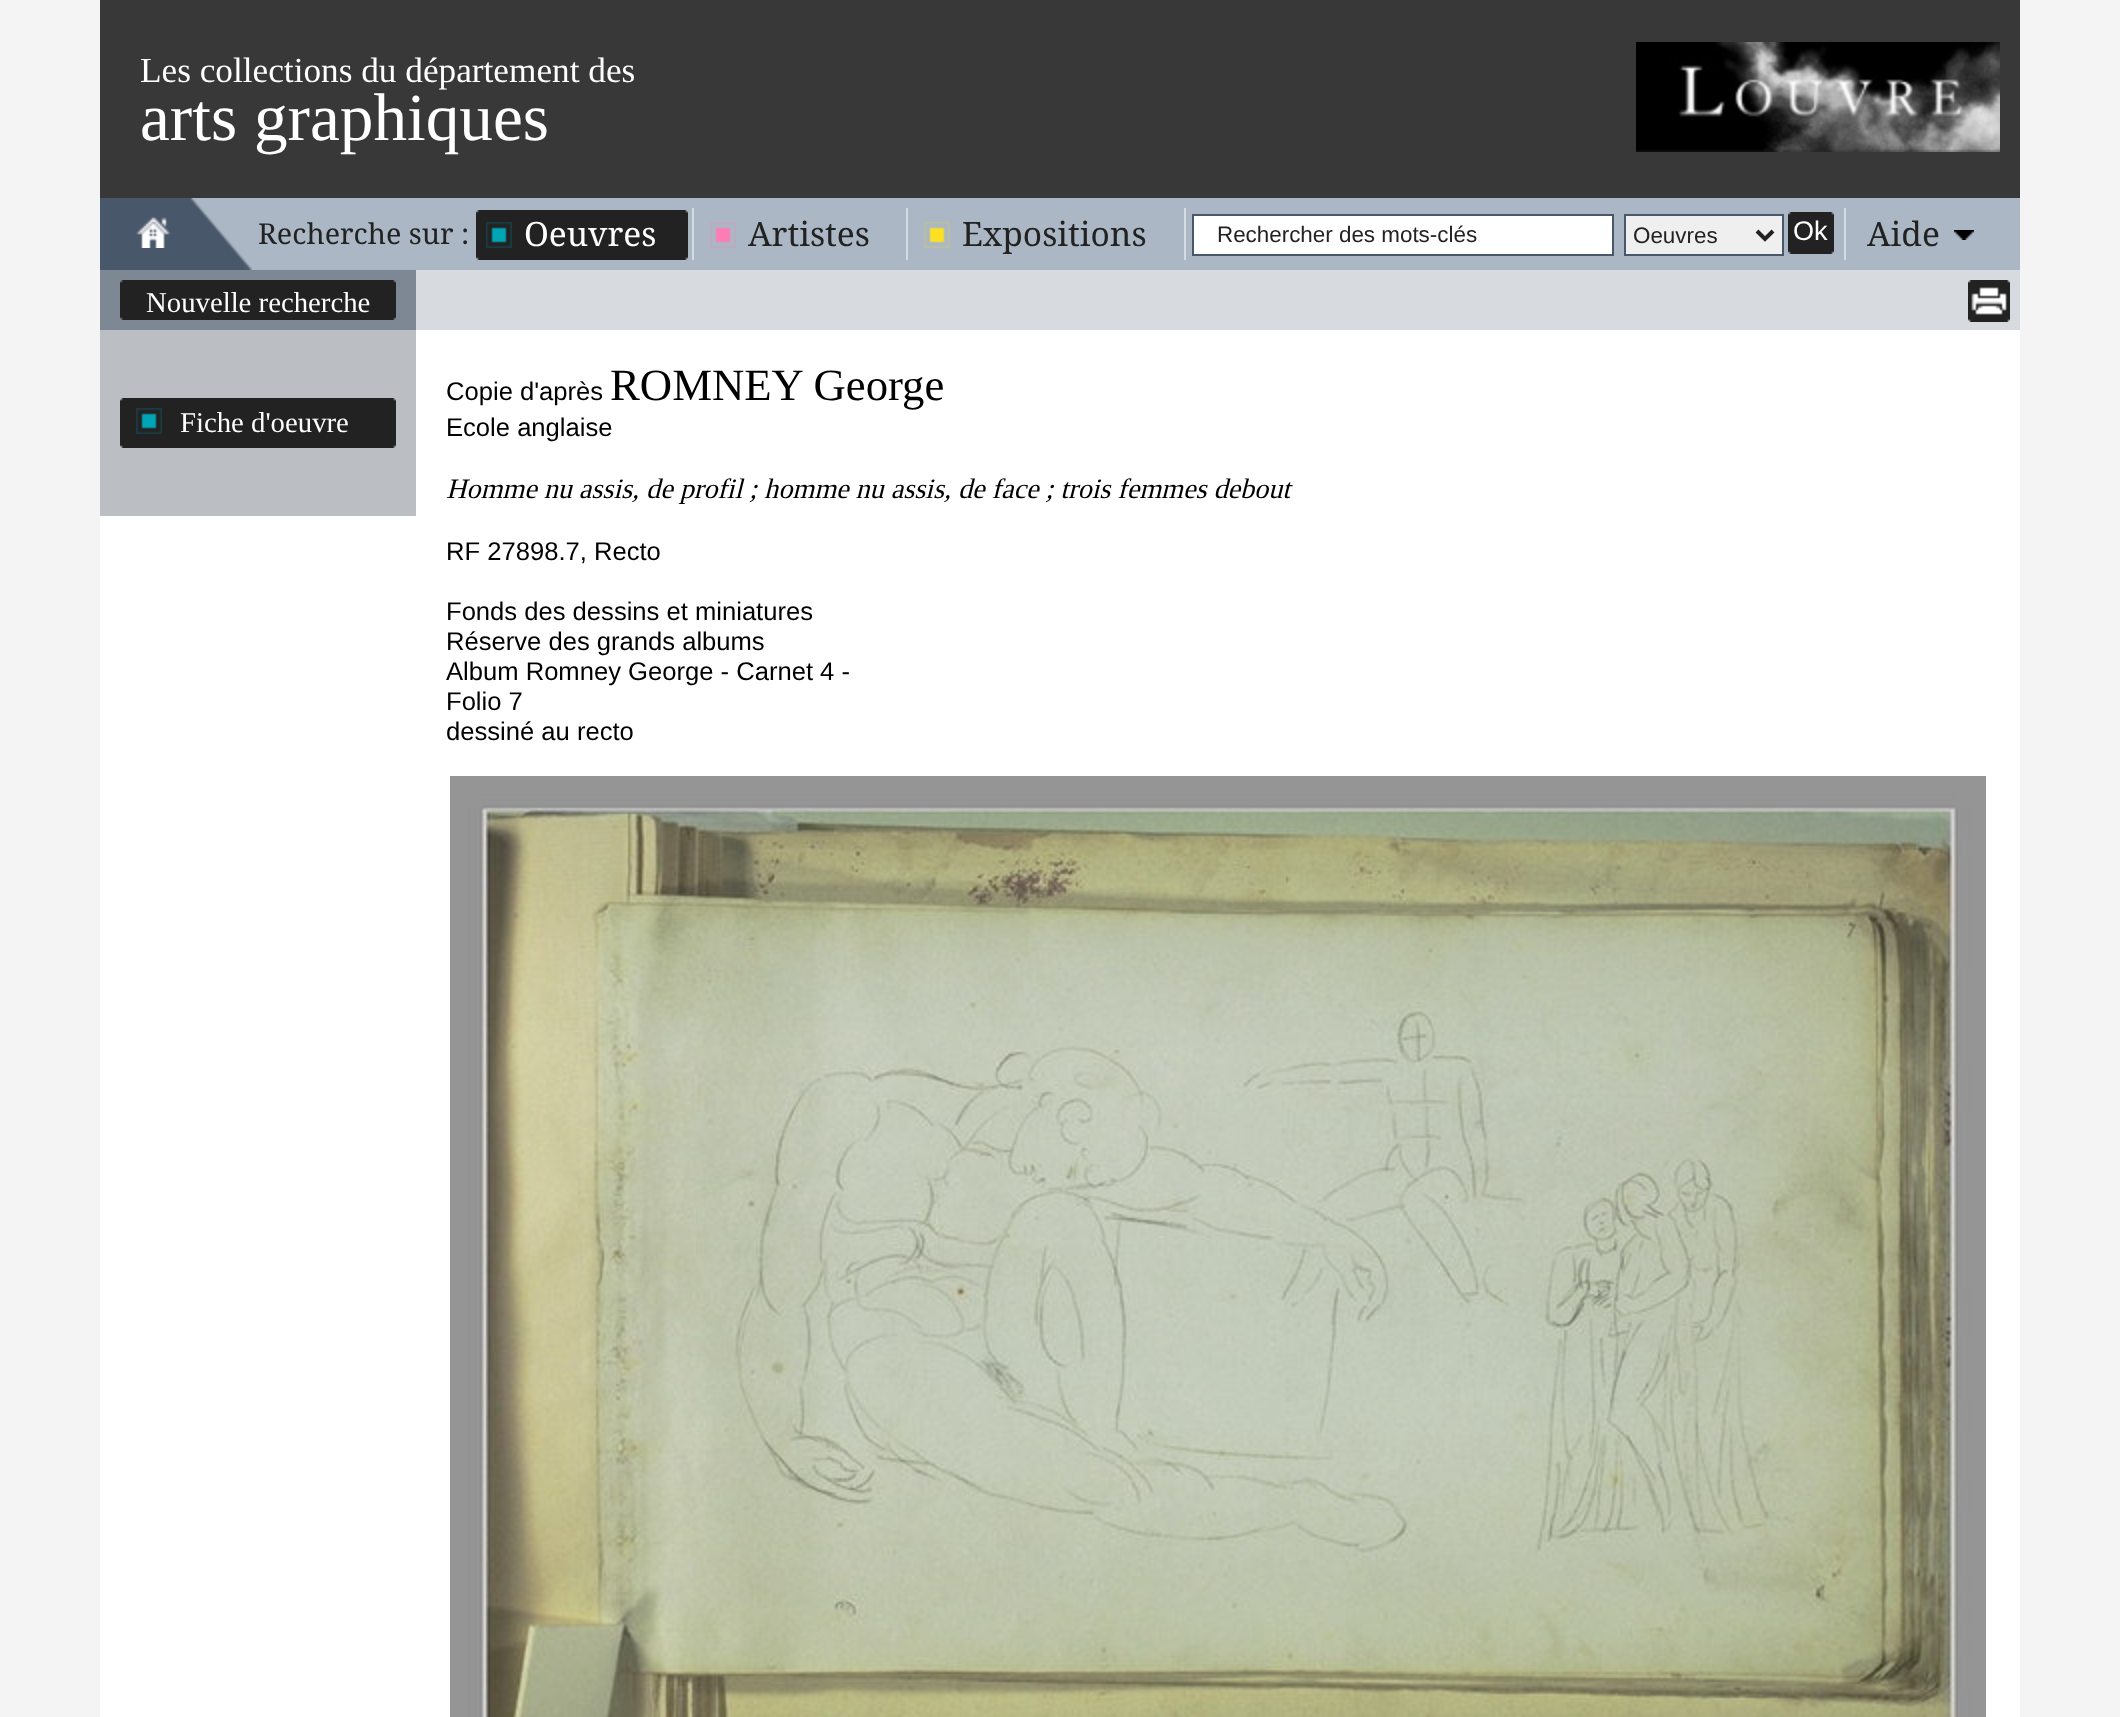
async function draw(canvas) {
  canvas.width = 2120;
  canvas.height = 1717;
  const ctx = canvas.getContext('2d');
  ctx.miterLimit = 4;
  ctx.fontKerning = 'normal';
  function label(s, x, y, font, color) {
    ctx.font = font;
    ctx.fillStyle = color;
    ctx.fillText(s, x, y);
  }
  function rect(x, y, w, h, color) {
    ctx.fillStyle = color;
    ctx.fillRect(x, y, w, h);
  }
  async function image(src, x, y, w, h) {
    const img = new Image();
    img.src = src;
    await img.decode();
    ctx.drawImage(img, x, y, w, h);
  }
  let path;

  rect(0, 0, 2120, 1717, '#f4f4f4');
  rect(100, 330, 1920, 1387, '#fff');
  rect(100, 0, 1920, 198, '#383838');
  label('Les collections du département des', 140, 82, '35.25px Tinos', '#fff');
  await image('assets/img1.png', 1636, 42, 364, 110);
  label('arts graphiques', 140, 140, '67.25px Tinos', '#fff');
  rect(252, 198, 1768, 72, '#abb7c4');
  await image('assets/img2.png', 100, 198, 152, 72);
  await image('assets/img3.png', 136, 217, 34, 31);
  label('Recherche sur :', 258, 244, '28.75px Droid Serif', '#222');
  rect(692, 208, 2, 52, '#d5dbe2');
  await image('assets/img4.png', 476, 210, 209, 50);
  await image('assets/img5.png', 685, 210, 3, 50);
  await image('assets/img6.png', 486, 222, 26, 26);
  label('Oeuvres', 524, 246, '33.5px Droid Serif', '#fff');
  rect(906, 208, 2, 52, '#d5dbe2');
  await image('assets/img7.png', 710, 222, 26, 26);
  label('Artistes', 748, 246, '33.5px Droid Serif', '#222');
  rect(1184, 208, 2, 52, '#d5dbe2');
  await image('assets/img8.png', 924, 222, 26, 26);
  label('Expositions', 962, 246, '33.5px Droid Serif', '#222');
  ctx.fillStyle = '#fff';
  ctx.beginPath();
  ctx.rect(1193, 215, 420, 40);
  ctx.fill();
  ctx.strokeStyle = '#485769';
  ctx.lineWidth = 2;
  ctx.stroke();
  label('Rechercher des mots-clés', 1217, 242, '22.4px Liberation Sans', '#222');
  ctx.fillStyle = '#efefef';
  ctx.beginPath();
  ctx.rect(1625, 215, 158, 40);
  ctx.fill();
  ctx.stroke();
  path = new Path2D('M1757 231L1765 239L1773 231');
  ctx.strokeStyle = '#222';
  ctx.lineWidth = 4;
  ctx.stroke(path);
  label('Oeuvres', 1633, 243, '22.4px Liberation Sans', '#222');
  await image('assets/img9.png', 1788, 212, 40, 42);
  label('Ok', 1793, 240, '27px Liberation Sans', '#fff');
  await image('assets/img10.png', 1828, 212, 6, 42);
  rect(1844, 208, 2, 52, '#d5dbe2');
  label('Aide', 1867, 246, '33.5px Droid Serif', '#222');
  await image('assets/img11.png', 1954, 230, 20, 10);
  rect(100, 270, 316, 60, '#7d8894');
  await image('assets/img12.png', 120, 280, 276, 36);
  label('Nouvelle recherche', 146, 312, '28.75px Tinos', '#fff');
  await image('assets/img13.png', 120, 316, 276, 4);
  rect(100, 330, 316, 186, '#bbbfc4');
  await image('assets/img14.png', 120, 398, 276, 42);
  await image('assets/img6.png', 136, 408, 26, 26);
  label('Fiche d\'oeuvre', 180, 432, '28.75px Tinos', '#fff');
  await image('assets/img15.png', 120, 440, 276, 8);
  rect(416, 270, 1604, 60, '#d7dbdf');
  await image('assets/img16.png', 1968, 280, 42, 42);
  label('Copie d\'après', 446, 400, '25.6px Liberation Sans', '#000');
  label('ROMNEY George', 610, 400, '44.75px Tinos', '#000');
  label('Ecole anglaise', 446, 436, '25.6px Liberation Sans', '#000');
  label('Homme nu assis, de profil ; homme nu assis, de face ; trois femmes debout', 446, 498, 'italic 28.15px Tinos', '#000');
  label('RF 27898.7, Recto', 446, 560, '25.6px Liberation Sans', '#000');
  label('Fonds des dessins et miniatures', 446, 620, '25.6px Liberation Sans', '#000');
  label('Réserve des grands albums', 446, 650, '25.6px Liberation Sans', '#000');
  label('Album Romney George - Carnet 4 -', 446, 680, '25.6px Liberation Sans', '#000');
  label('Folio 7', 446, 710, '25.6px Liberation Sans', '#000');
  label('dessiné au recto', 446, 740, '25.6px Liberation Sans', '#000');
  await image('assets/img17.png', 450, 776, 1536, 941);
}

draw(document.querySelector('canvas'));
